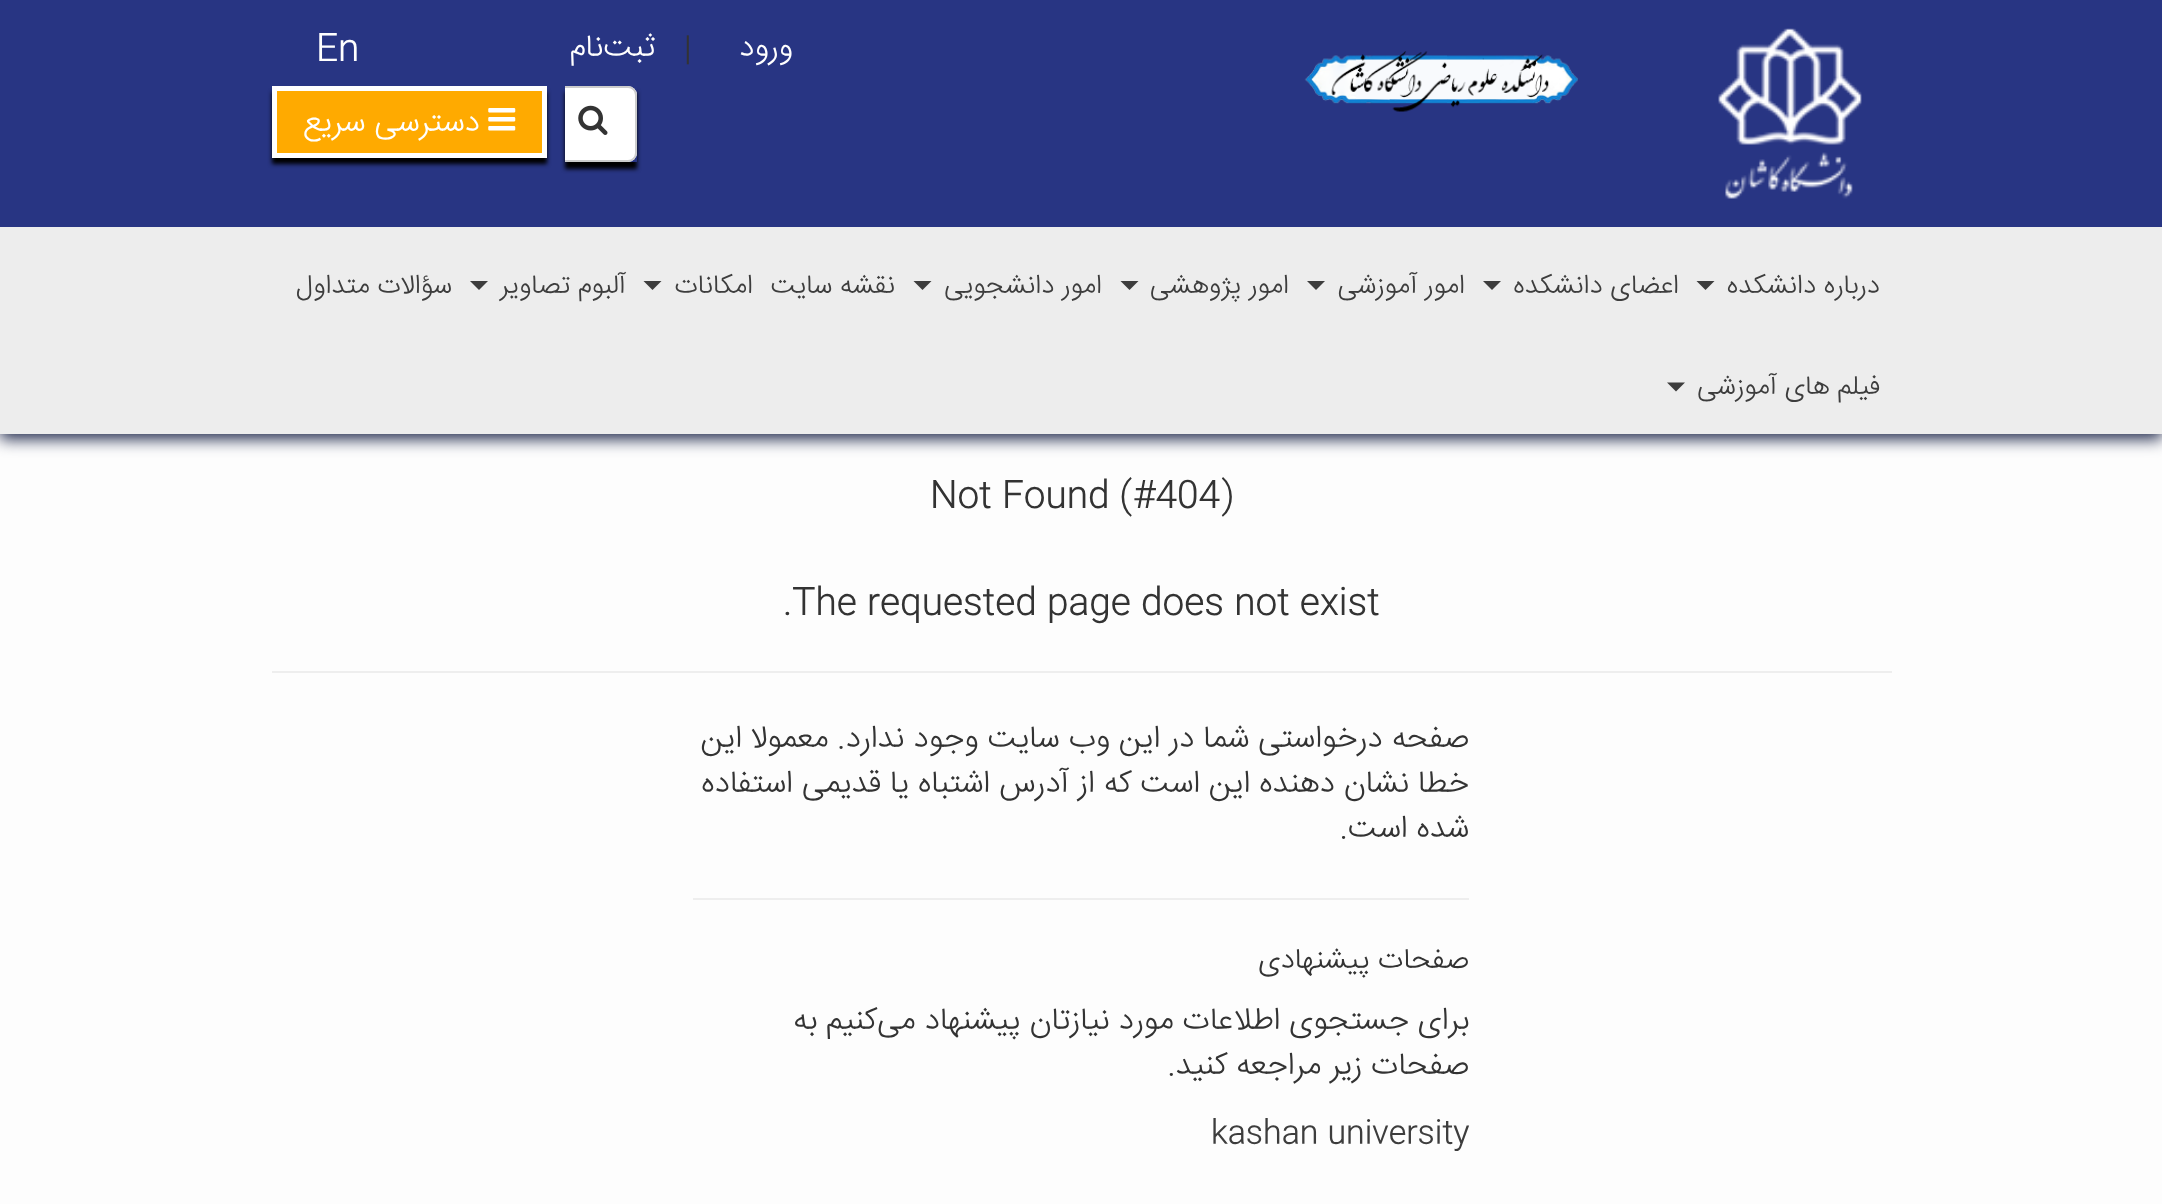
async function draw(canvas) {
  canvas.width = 2162;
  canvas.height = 1204;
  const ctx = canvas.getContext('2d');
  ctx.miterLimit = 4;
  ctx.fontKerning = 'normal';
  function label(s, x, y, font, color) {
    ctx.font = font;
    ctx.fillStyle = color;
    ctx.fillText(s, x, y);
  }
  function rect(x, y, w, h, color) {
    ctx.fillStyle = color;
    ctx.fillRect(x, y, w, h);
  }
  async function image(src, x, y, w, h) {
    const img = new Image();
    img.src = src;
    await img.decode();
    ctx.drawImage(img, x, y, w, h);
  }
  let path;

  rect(0, 0, 2162, 1204, '#fdfdfd');
  ctx.fillStyle = '#1e274a';
  ctx.filter = 'blur(8px)';
  ctx.beginPath();
  ctx.rect(0, 5, 2162, 434);
  ctx.fill();
  ctx.filter = 'none';
  rect(0, 0, 2162, 227, '#283583');
  await image('assets/img1.png', 1718, 28, 144, 171);
  await image('assets/img2.png', 1304, 51, 274, 61);
  ctx.direction = 'rtl';
  label('ورود', 793, 56, '300 31.5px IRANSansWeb', '#fff');
  ctx.direction = 'ltr';
  label('|', 684, 58, '300 31.5px IRANSansWeb', '#333');
  ctx.direction = 'rtl';
  label('ثبت‌نام', 655, 56, '300 31.5px IRANSansWeb', '#fff');
  ctx.direction = 'ltr';
  label('En', 316, 59, '300 36px IRANSansWeb', '#fff');
  ctx.save();
  path = new Path2D('M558 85H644V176H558ZM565 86H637V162H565Z');
  ctx.clip(path, 'evenodd');
  ctx.fillStyle = '#000';
  ctx.filter = 'blur(2px)';
  ctx.beginPath();
  ctx.rect(565, 92, 72, 77);
  ctx.fill();
  ctx.filter = 'none';
  ctx.restore();
  ctx.beginPath();
  ctx.roundRect(565, 86, 72, 76, [0, 9, 9, 0]);
  ctx.fill();
  ctx.fillStyle = '#000';
  ctx.filter = 'blur(2px)';
  ctx.beginPath();
  ctx.rect(272, 92, 275, 72);
  ctx.fill();
  ctx.filter = 'none';
  ctx.save();
  ctx.beginPath();
  ctx.rect(565, 86, 72, 76);
  ctx.clip();
  ctx.beginPath();
  ctx.roundRect(550, 87, 86, 74, [0, 8, 8, 0]);
  ctx.strokeStyle = '#ccc';
  ctx.lineWidth = 2;
  ctx.stroke();
  ctx.restore();
  await image('assets/img3.png', 578, 105, 30, 30);
  ctx.fillStyle = '#fa0';
  ctx.beginPath();
  ctx.rect(274.5, 88.5, 270, 67);
  ctx.fill();
  ctx.strokeStyle = '#fff';
  ctx.lineWidth = 5;
  ctx.stroke();
  await image('assets/img4.png', 488, 108, 28, 23);
  ctx.direction = 'rtl';
  label('دسترسی سریع', 480, 131, '300 31.5px IRANSansWeb', '#fff');
  rect(0, 227, 2162, 207, '#ededed');
  label('درباره دانشکده', 1880, 293, '300 27px IRANSansWeb', '#3d3d3d');
  path = new Path2D('M1696.5 281H1714.5L1705.5 290Z');
  ctx.fill(path);
  label('اعضای دانشکده', 1679, 293, '300 27px IRANSansWeb', '#3d3d3d');
  path = new Path2D('M1483 281H1501L1492 290Z');
  ctx.fill(path);
  label('امور آموزشی', 1465, 293, '300 27px IRANSansWeb', '#3d3d3d');
  path = new Path2D('M1307 281H1325L1316 290Z');
  ctx.fill(path);
  label('امور پژوهشی', 1289, 293, '300 27px IRANSansWeb', '#3d3d3d');
  path = new Path2D('M1120.5 281H1138.5L1129.5 290Z');
  ctx.fill(path);
  label('امور دانشجویی', 1102, 293, '300 27px IRANSansWeb', '#3d3d3d');
  path = new Path2D('M913.5 281H931.5L922.5 290Z');
  ctx.fill(path);
  label('نقشه سایت', 895, 293, '300 27px IRANSansWeb', '#3d3d3d');
  label('امکانات', 753, 293, '300 27px IRANSansWeb', '#3d3d3d');
  path = new Path2D('M643.5 281H661.5L652.5 290Z');
  ctx.fill(path);
  label('آلبوم تصاویر', 626, 293, '300 27px IRANSansWeb', '#3d3d3d');
  path = new Path2D('M470 281H488L479 290Z');
  ctx.fill(path);
  label('سؤالات متداول', 452, 293, '300 27px IRANSansWeb', '#3d3d3d');
  label('فیلم های آموزشی', 1880, 394, '300 27px IRANSansWeb', '#3d3d3d');
  path = new Path2D('M1667 382.5H1685L1676 391.5Z');
  ctx.fill(path);
  ctx.direction = 'ltr';
  label('Not Found (#404)', 930, 506, '300 36px IRANSansWeb', '#333');
  label('.The requested page does not exist', 783, 613, '300 36px IRANSansWeb', '#333');
  rect(272, 671, 1620, 2, '#eee');
  ctx.direction = 'rtl';
  label('صفحه درخواستی شما در این وب سایت وجود ندارد. معمولا این', 1469, 747, '300 31.5px IRANSansWeb', '#333');
  label('خطا نشان دهنده این است که از آدرس اشتباه یا قدیمی استفاده', 1469, 792, '300 31.5px IRANSansWeb', '#333');
  label('شده است.', 1469, 837, '300 31.5px IRANSansWeb', '#333');
  rect(693, 898, 776, 2, '#eee');
  label('صفحات پیشنهادی', 1469, 968, '300 29.25px IRANSansWeb', '#333');
  label('برای جستجوی اطلاعات مورد نیازتان پیشنهاد می‌کنیم به', 1469, 1029, '300 31.5px IRANSansWeb', '#333');
  label('صفحات زیر مراجعه کنید.', 1469, 1074, '300 31.5px IRANSansWeb', '#333');
  ctx.direction = 'ltr';
  label('kashan university', 1211, 1142, '300 31.5px IRANSansWeb', '#3d3d3d');
}

draw(document.querySelector('canvas'));
